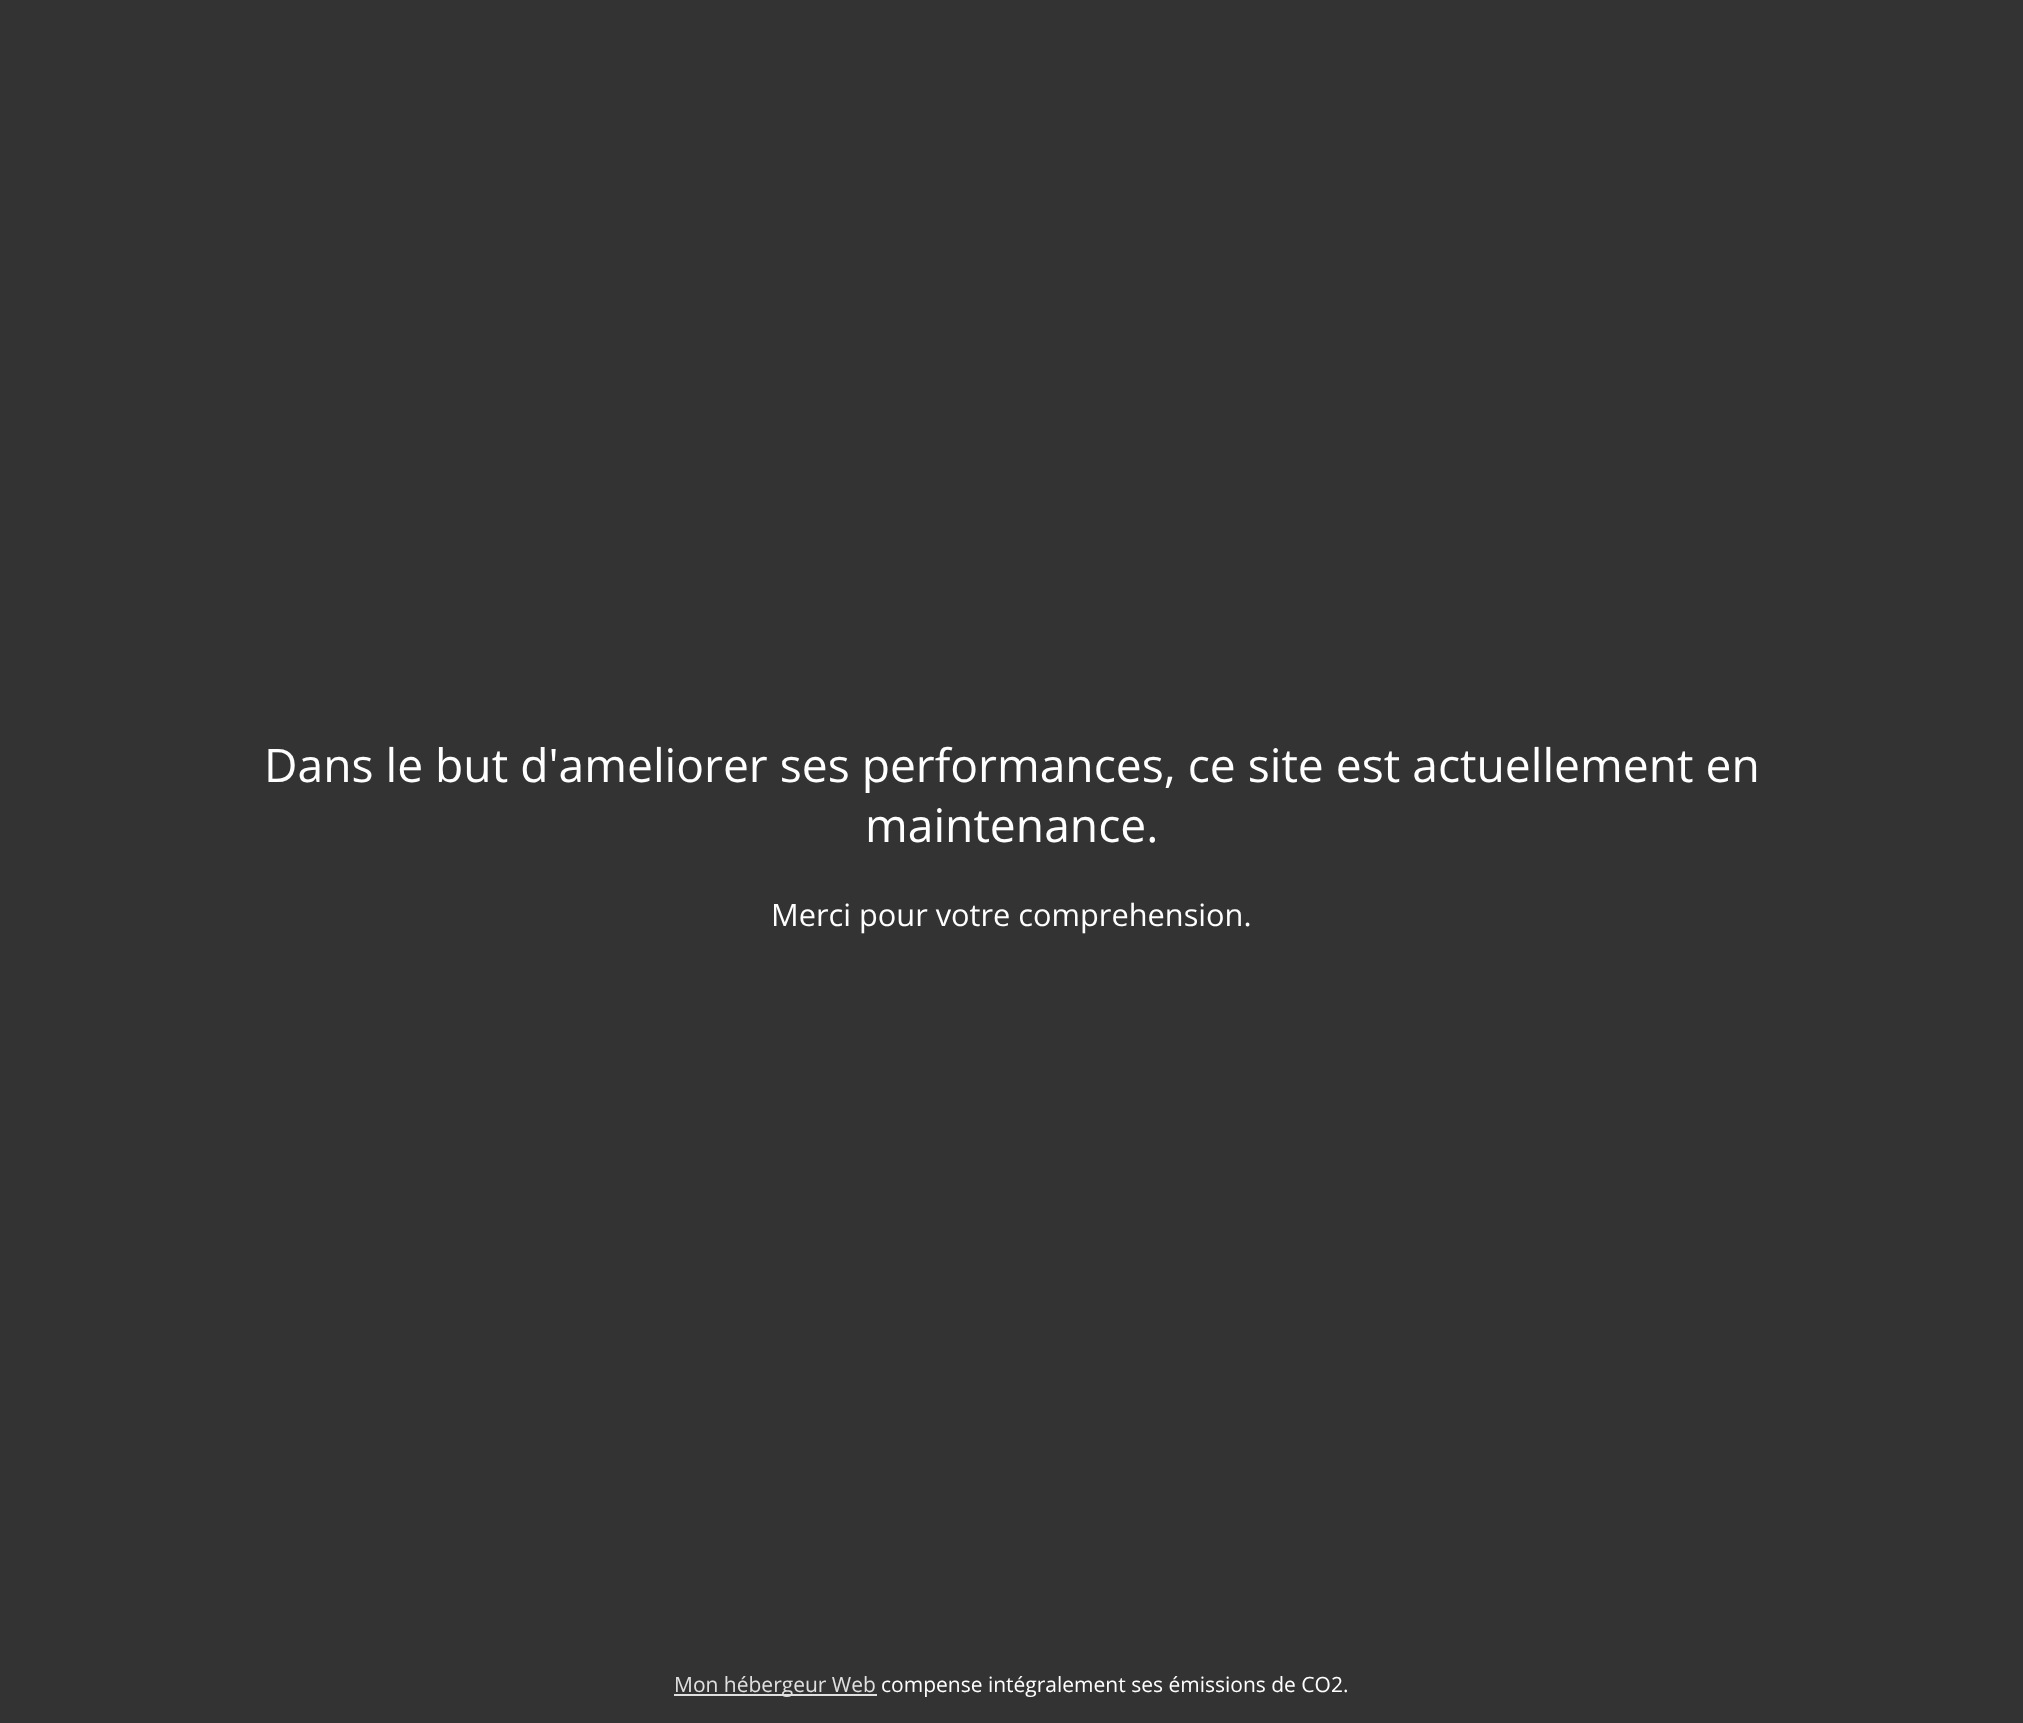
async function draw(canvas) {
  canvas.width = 2023;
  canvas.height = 1723;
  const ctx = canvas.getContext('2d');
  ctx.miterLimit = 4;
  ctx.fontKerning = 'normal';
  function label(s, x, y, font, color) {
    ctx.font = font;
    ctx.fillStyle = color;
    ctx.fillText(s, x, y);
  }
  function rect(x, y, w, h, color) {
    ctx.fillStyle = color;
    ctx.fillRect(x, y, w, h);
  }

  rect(0, 0, 2023, 1723, '#333');
  label('Dans le but d\'ameliorer ses performances, ce site est actuellement en', 264, 782, '46.2px Open Sans', '#fff');
  label('maintenance.', 865, 842, '46.2px Open Sans', '#fff');
  label('Merci pour votre comprehension.', 771, 926, '30.75px Open Sans', '#fff');
  rect(674, 1694, 203, 2, '#e0e0e0');
  label('Mon hébergeur Web', 674, 1692, '21px Open Sans', '#e0e0e0');
  label('compense intégralement ses émissions de CO2.', 881, 1692, '21px Open Sans', '#fff');
}

draw(document.querySelector('canvas'));
